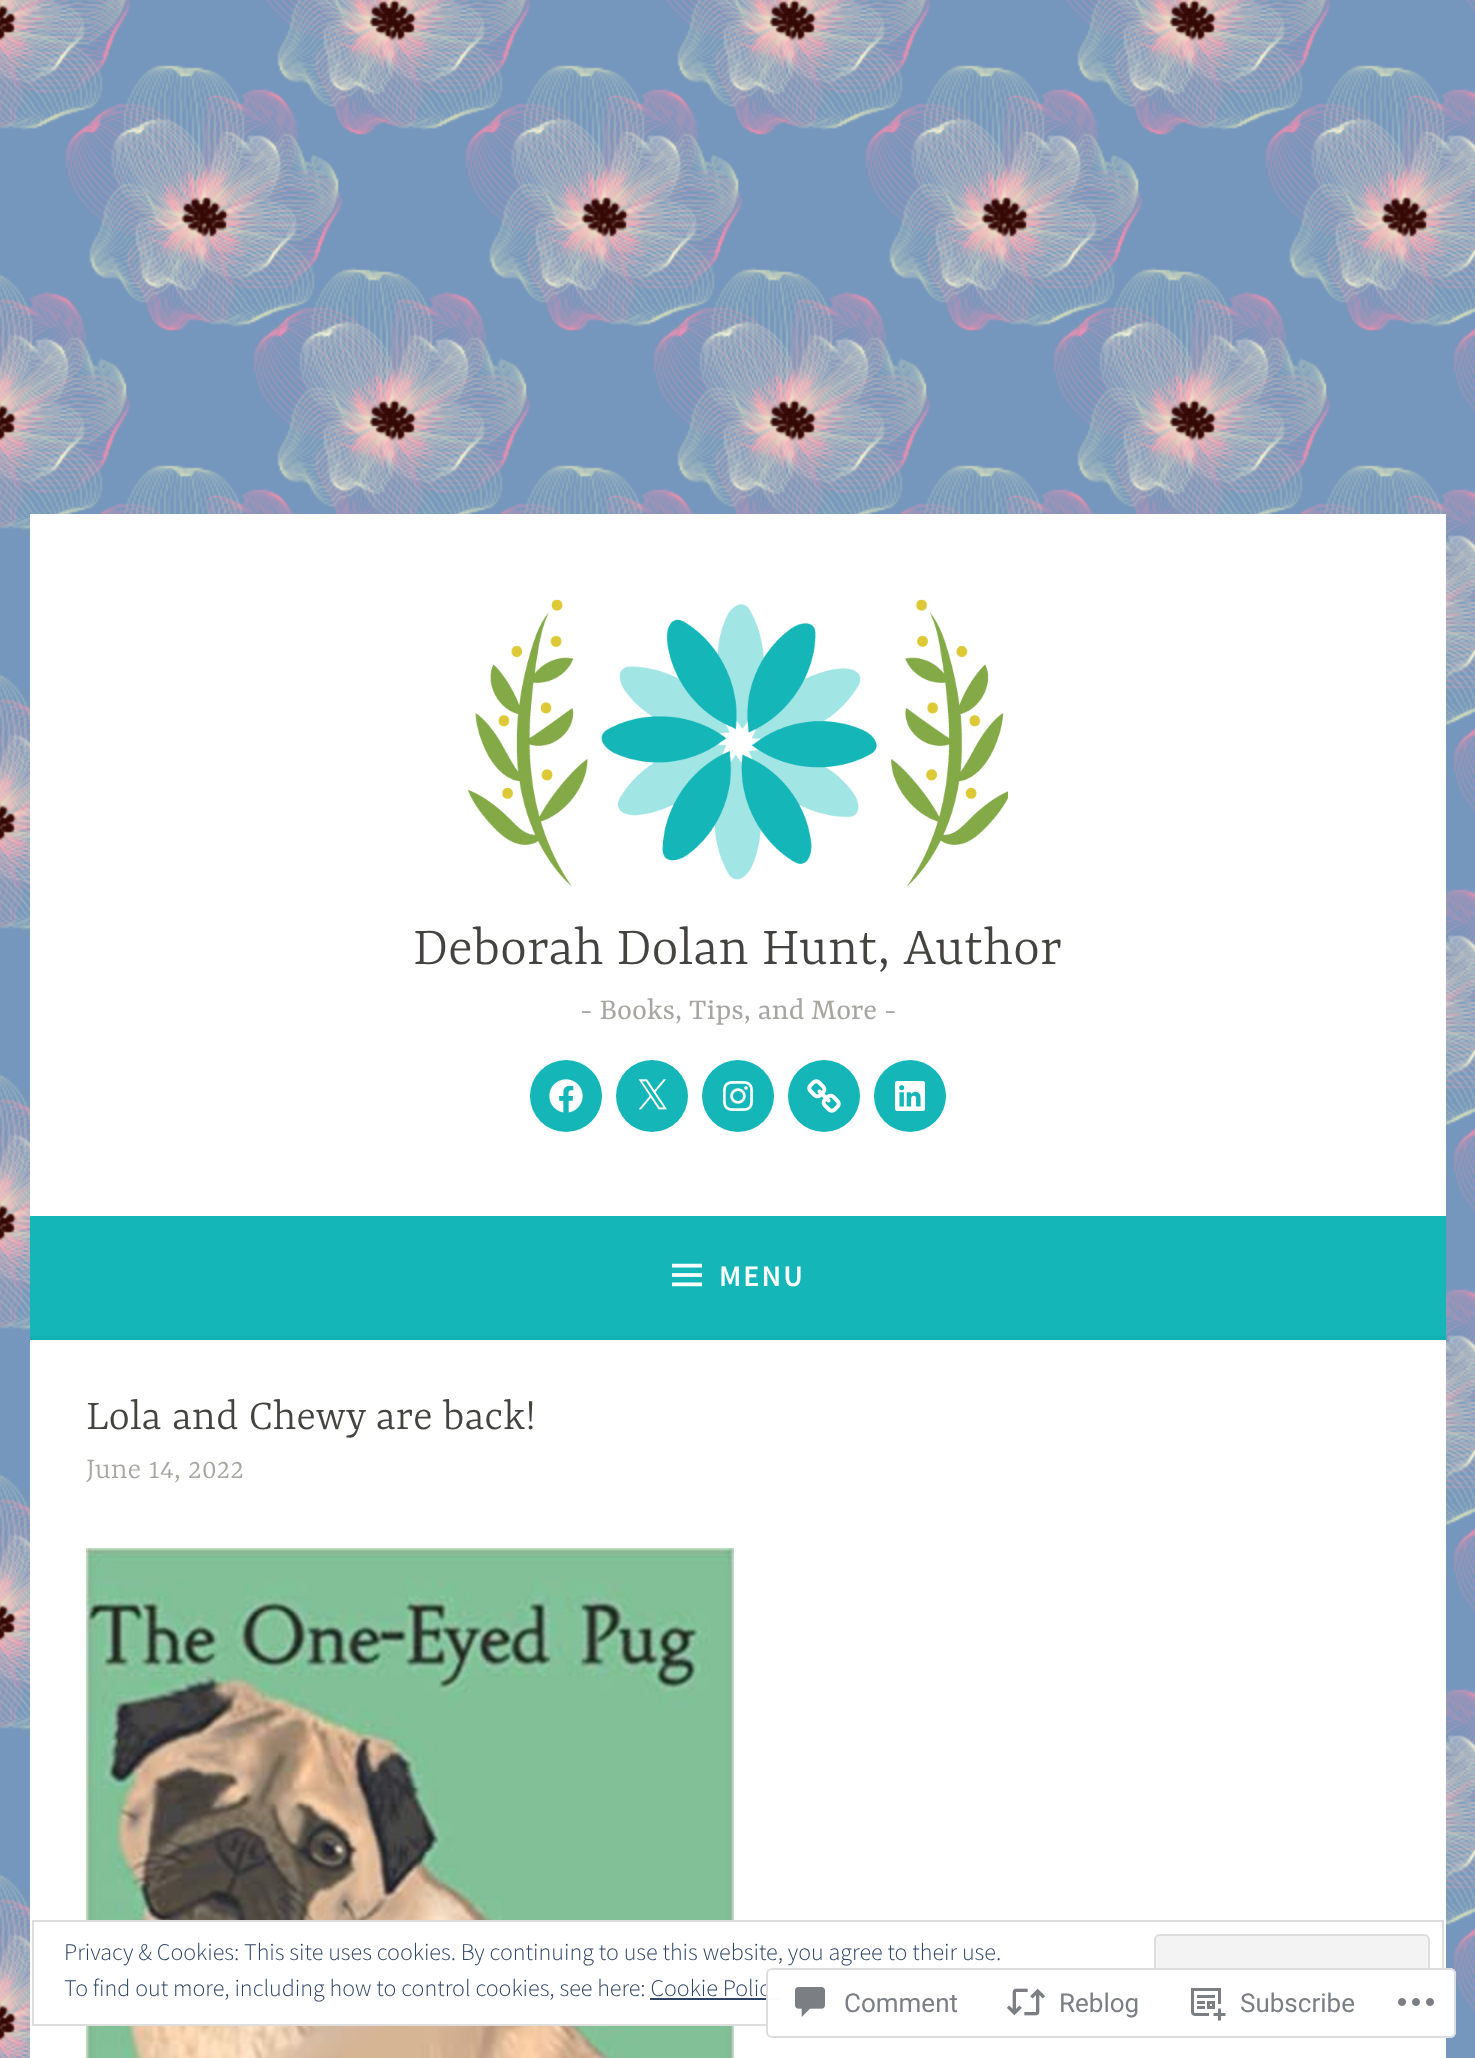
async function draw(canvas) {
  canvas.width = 1475;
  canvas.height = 2058;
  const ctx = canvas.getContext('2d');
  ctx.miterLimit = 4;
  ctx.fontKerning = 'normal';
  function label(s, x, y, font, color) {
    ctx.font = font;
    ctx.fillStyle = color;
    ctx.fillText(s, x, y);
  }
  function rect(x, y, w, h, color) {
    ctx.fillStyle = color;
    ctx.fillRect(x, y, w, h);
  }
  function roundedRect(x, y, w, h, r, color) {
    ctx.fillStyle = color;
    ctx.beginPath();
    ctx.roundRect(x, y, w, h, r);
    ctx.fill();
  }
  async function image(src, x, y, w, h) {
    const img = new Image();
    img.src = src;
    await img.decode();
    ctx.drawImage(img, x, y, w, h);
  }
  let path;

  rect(0, 0, 1475, 2058, '#fff');
  await image('assets/img1.png', 0, 0, 1475, 2058);
  rect(30, 514, 1416, 702, '#fff');
  await image('assets/img2.png', 468, 599, 540, 288);
  label('Deborah Dolan Hunt, Author', 413, 964, '300 58px Yrsa', '#444340');
  label('- Books, Tips, and More -', 580, 1019, '32px Yrsa', '#a8a6a1');
  ctx.fillStyle = '#15b6b8';
  ctx.beginPath();
  ctx.arc(566, 1096, 36, 0, 2 * Math.PI);
  ctx.fill();
  await image('assets/img3.png', 549, 1079, 34, 34);
  ctx.beginPath();
  ctx.arc(652, 1096, 36, 0, 2 * Math.PI);
  ctx.fill();
  await image('assets/img4.png', 638, 1079, 29, 31);
  ctx.beginPath();
  ctx.arc(738, 1096, 36, 0, 2 * Math.PI);
  ctx.fill();
  await image('assets/img5.png', 723, 1081, 30, 30);
  ctx.beginPath();
  ctx.arc(824, 1096, 36, 0, 2 * Math.PI);
  ctx.fill();
  await image('assets/img6.png', 807, 1079, 34, 34);
  ctx.beginPath();
  ctx.arc(910, 1096, 36, 0, 2 * Math.PI);
  ctx.fill();
  await image('assets/img7.png', 895, 1081, 30, 30);
  rect(30, 1216, 1416, 120, '#15b6b8');
  rect(30, 1336, 1416, 4, '#14b1b2');
  await image('assets/img8.png', 672, 1263, 30, 24);
  ctx.letterSpacing = '2px';
  label('MENU', 719, 1286, '600 30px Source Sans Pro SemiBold', '#fff');
  rect(30, 1340, 1416, 718, '#fff');
  ctx.letterSpacing = '0px';
  label('Lola and Chewy are back!', 86, 1429, '300 46px Yrsa', '#444340');
  label('June 14, 2022', 86, 1478, '300 32px Yrsa', '#a8a6a1');
  await image('assets/img9.png', 86, 1548, 648, 510);
  rect(86, 1922, 648, 102, '#fff');
  ctx.strokeStyle = '#dedede';
  ctx.lineWidth = 2;
  ctx.strokeRect(33, 1921, 1410, 104);
  label('Privacy & Cookies: This site uses cookies. By continuing to use this website, you agree to their use.', 64, 1960, '300 24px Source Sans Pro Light', '#2e4467');
  roundedRect(1154, 1934, 276, 78, 6, '#f3f3f3');
  ctx.fillStyle = '#dbdbdb';
  path = new Path2D('M1156 2002V2006C1156 2008 1158 2010 1160 2010H1424C1426 2010 1428 2008 1428 2006V2002C1428 2004 1426 2006 1424 2006H1160C1158 2006 1156 2004 1156 2002Z');
  ctx.fill(path);
  ctx.beginPath();
  ctx.roundRect(1155, 1935, 274, 76, 5);
  ctx.stroke();
  label('To find out more, including how to control cookies, see here: Cookie Polic', 64, 1996, '300 24px Source Sans Pro Light', '#2e4467');
  rect(650, 1998, 130, 2, '#2e4467');
  roundedRect(766, 1968, 690, 70, 6, '#fffffffa');
  ctx.beginPath();
  ctx.roundRect(767, 1969, 688, 68, 5);
  ctx.strokeStyle = '#dcdcdefa';
  ctx.stroke();
  await image('assets/img10.png', 795, 1987, 30, 30);
  label('Comment', 844, 2012, '26px Roboto', '#7b7f85');
  await image('assets/img11.png', 1006, 1988, 40, 28);
  label('Reblog', 1059, 2012, '26px Roboto', '#7b7f85');
  await image('assets/img12.png', 1191, 1988, 35, 33);
  label('Subscribe', 1240, 2012, '26px Roboto', '#7b7f85');
  await image('assets/img13.png', 1398, 1998, 36, 8);
}

draw(document.querySelector('canvas'));
